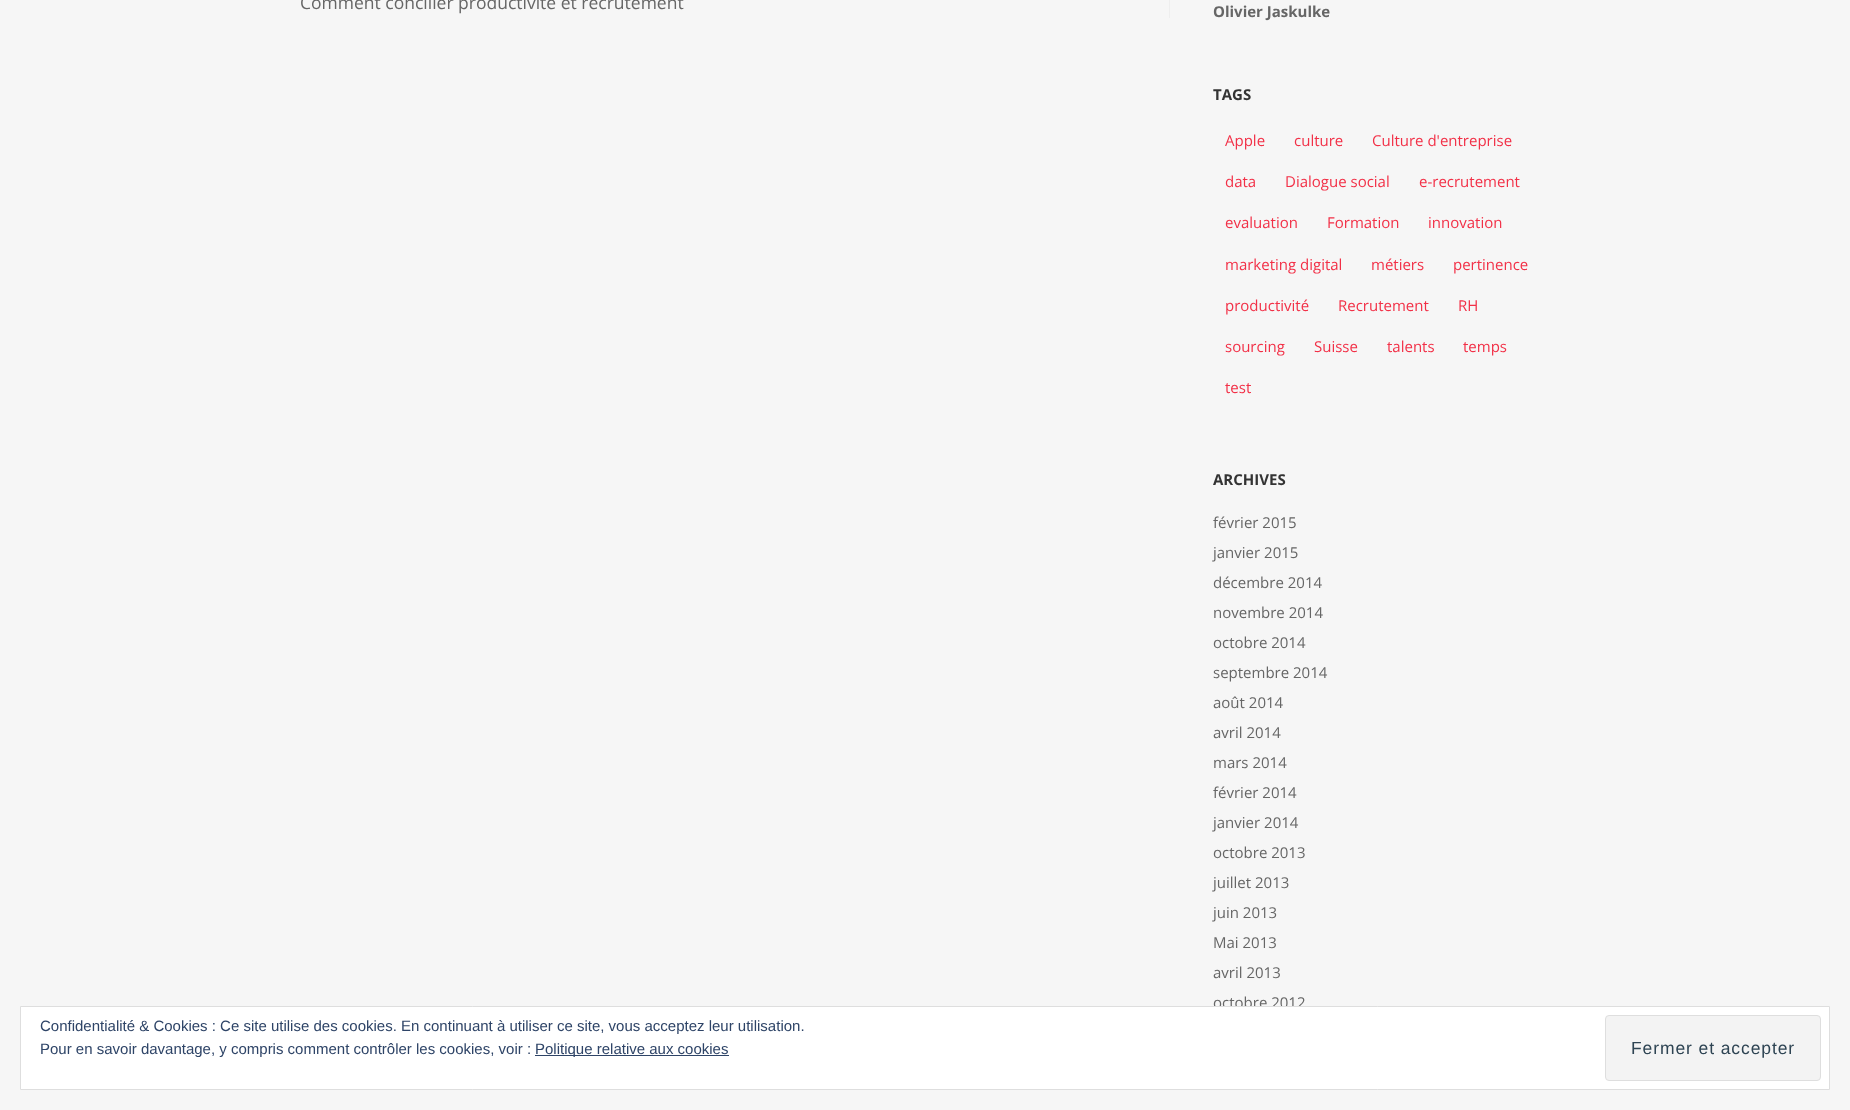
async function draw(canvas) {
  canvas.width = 1850;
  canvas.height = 1110;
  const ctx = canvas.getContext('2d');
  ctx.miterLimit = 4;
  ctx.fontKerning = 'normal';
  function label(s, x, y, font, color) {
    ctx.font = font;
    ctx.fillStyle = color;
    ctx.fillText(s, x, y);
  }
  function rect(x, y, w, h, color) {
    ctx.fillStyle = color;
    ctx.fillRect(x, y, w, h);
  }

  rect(0, 0, 1850, 1110, '#f6f6f6');
  rect(1169, 0, 1, 18, '#eee');
  label('Comment concilier productivité et recrutement', 300, 9, '17.5px Open Sans', '#666');
  label('Olivier Jaskulke', 1213, 17, 'bold 15px Open Sans', '#666');
  label('TAGS', 1213, 100, 'bold 15px Open Sans', '#333');
  label('Apple', 1225, 146, '15px Open Sans', '#f23047');
  label('culture', 1294, 146, '15px Open Sans', '#f23047');
  label('Culture d\'entreprise', 1372, 146, '15px Open Sans', '#f23047');
  label('data', 1225, 187, '15px Open Sans', '#f23047');
  label('Dialogue social', 1285, 187, '15px Open Sans', '#f23047');
  label('e-recrutement', 1419, 187, '15px Open Sans', '#f23047');
  label('evaluation', 1225, 228, '15px Open Sans', '#f23047');
  label('Formation', 1327, 228, '15px Open Sans', '#f23047');
  label('innovation', 1428, 228, '15px Open Sans', '#f23047');
  label('marketing digital', 1225, 270, '15px Open Sans', '#f23047');
  label('métiers', 1371, 270, '15px Open Sans', '#f23047');
  label('pertinence', 1453, 270, '15px Open Sans', '#f23047');
  label('productivité', 1225, 311, '15px Open Sans', '#f23047');
  label('Recrutement', 1338, 311, '15px Open Sans', '#f23047');
  label('RH', 1458, 311, '15px Open Sans', '#f23047');
  label('sourcing', 1225, 352, '15px Open Sans', '#f23047');
  label('Suisse', 1314, 352, '15px Open Sans', '#f23047');
  label('talents', 1387, 352, '15px Open Sans', '#f23047');
  label('temps', 1463, 352, '15px Open Sans', '#f23047');
  label('test', 1225, 393, '15px Open Sans', '#f23047');
  label('ARCHIVES', 1213, 485, 'bold 15px Open Sans', '#333');
  label('février 2015', 1213, 528, '15px Open Sans', '#666');
  label('janvier 2015', 1213, 558, '15px Open Sans', '#666');
  label('décembre 2014', 1213, 588, '15px Open Sans', '#666');
  label('novembre 2014', 1213, 618, '15px Open Sans', '#666');
  label('octobre 2014', 1213, 648, '15px Open Sans', '#666');
  label('septembre 2014', 1213, 678, '15px Open Sans', '#666');
  label('août 2014', 1213, 708, '15px Open Sans', '#666');
  label('avril 2014', 1213, 738, '15px Open Sans', '#666');
  label('mars 2014', 1213, 768, '15px Open Sans', '#666');
  label('février 2014', 1213, 798, '15px Open Sans', '#666');
  label('janvier 2014', 1213, 828, '15px Open Sans', '#666');
  label('octobre 2013', 1213, 858, '15px Open Sans', '#666');
  label('juillet 2013', 1213, 888, '15px Open Sans', '#666');
  label('juin 2013', 1213, 918, '15px Open Sans', '#666');
  label('Mai 2013', 1213, 948, '15px Open Sans', '#666');
  label('avril 2013', 1213, 978, '15px Open Sans', '#666');
  label('octobre 2012', 1213, 1008, '15px Open Sans', '#666');
  ctx.fillStyle = '#fff';
  ctx.beginPath();
  ctx.rect(20.5, 1006.5, 1809, 83);
  ctx.fill();
  ctx.strokeStyle = '#dedede';
  ctx.stroke();
  label('Confidentialité & Cookies : Ce site utilise des cookies. En continuant à utiliser ce site, vous acceptez leur utilisation.', 40, 1031, '15px Liberation Sans', '#2e4467');
  label('Pour en savoir davantage, y compris comment contrôler les cookies, voir :', 40, 1054, '15px Liberation Sans', '#2e4467');
  rect(535, 1055, 194, 1, '#2e4467');
  label('Politique relative aux cookies', 535, 1054, '15px Liberation Sans', '#2e4467');
  ctx.fillStyle = '#f3f3f3';
  ctx.beginPath();
  ctx.roundRect(1605.5, 1015.5, 215, 65, 3.5);
  ctx.fill();
  ctx.stroke();
  ctx.letterSpacing = '0.9px';
  label('Fermer et accepter', 1631, 1054, '17.5px Liberation Sans', '#2e4453');
}

draw(document.querySelector('canvas'));
